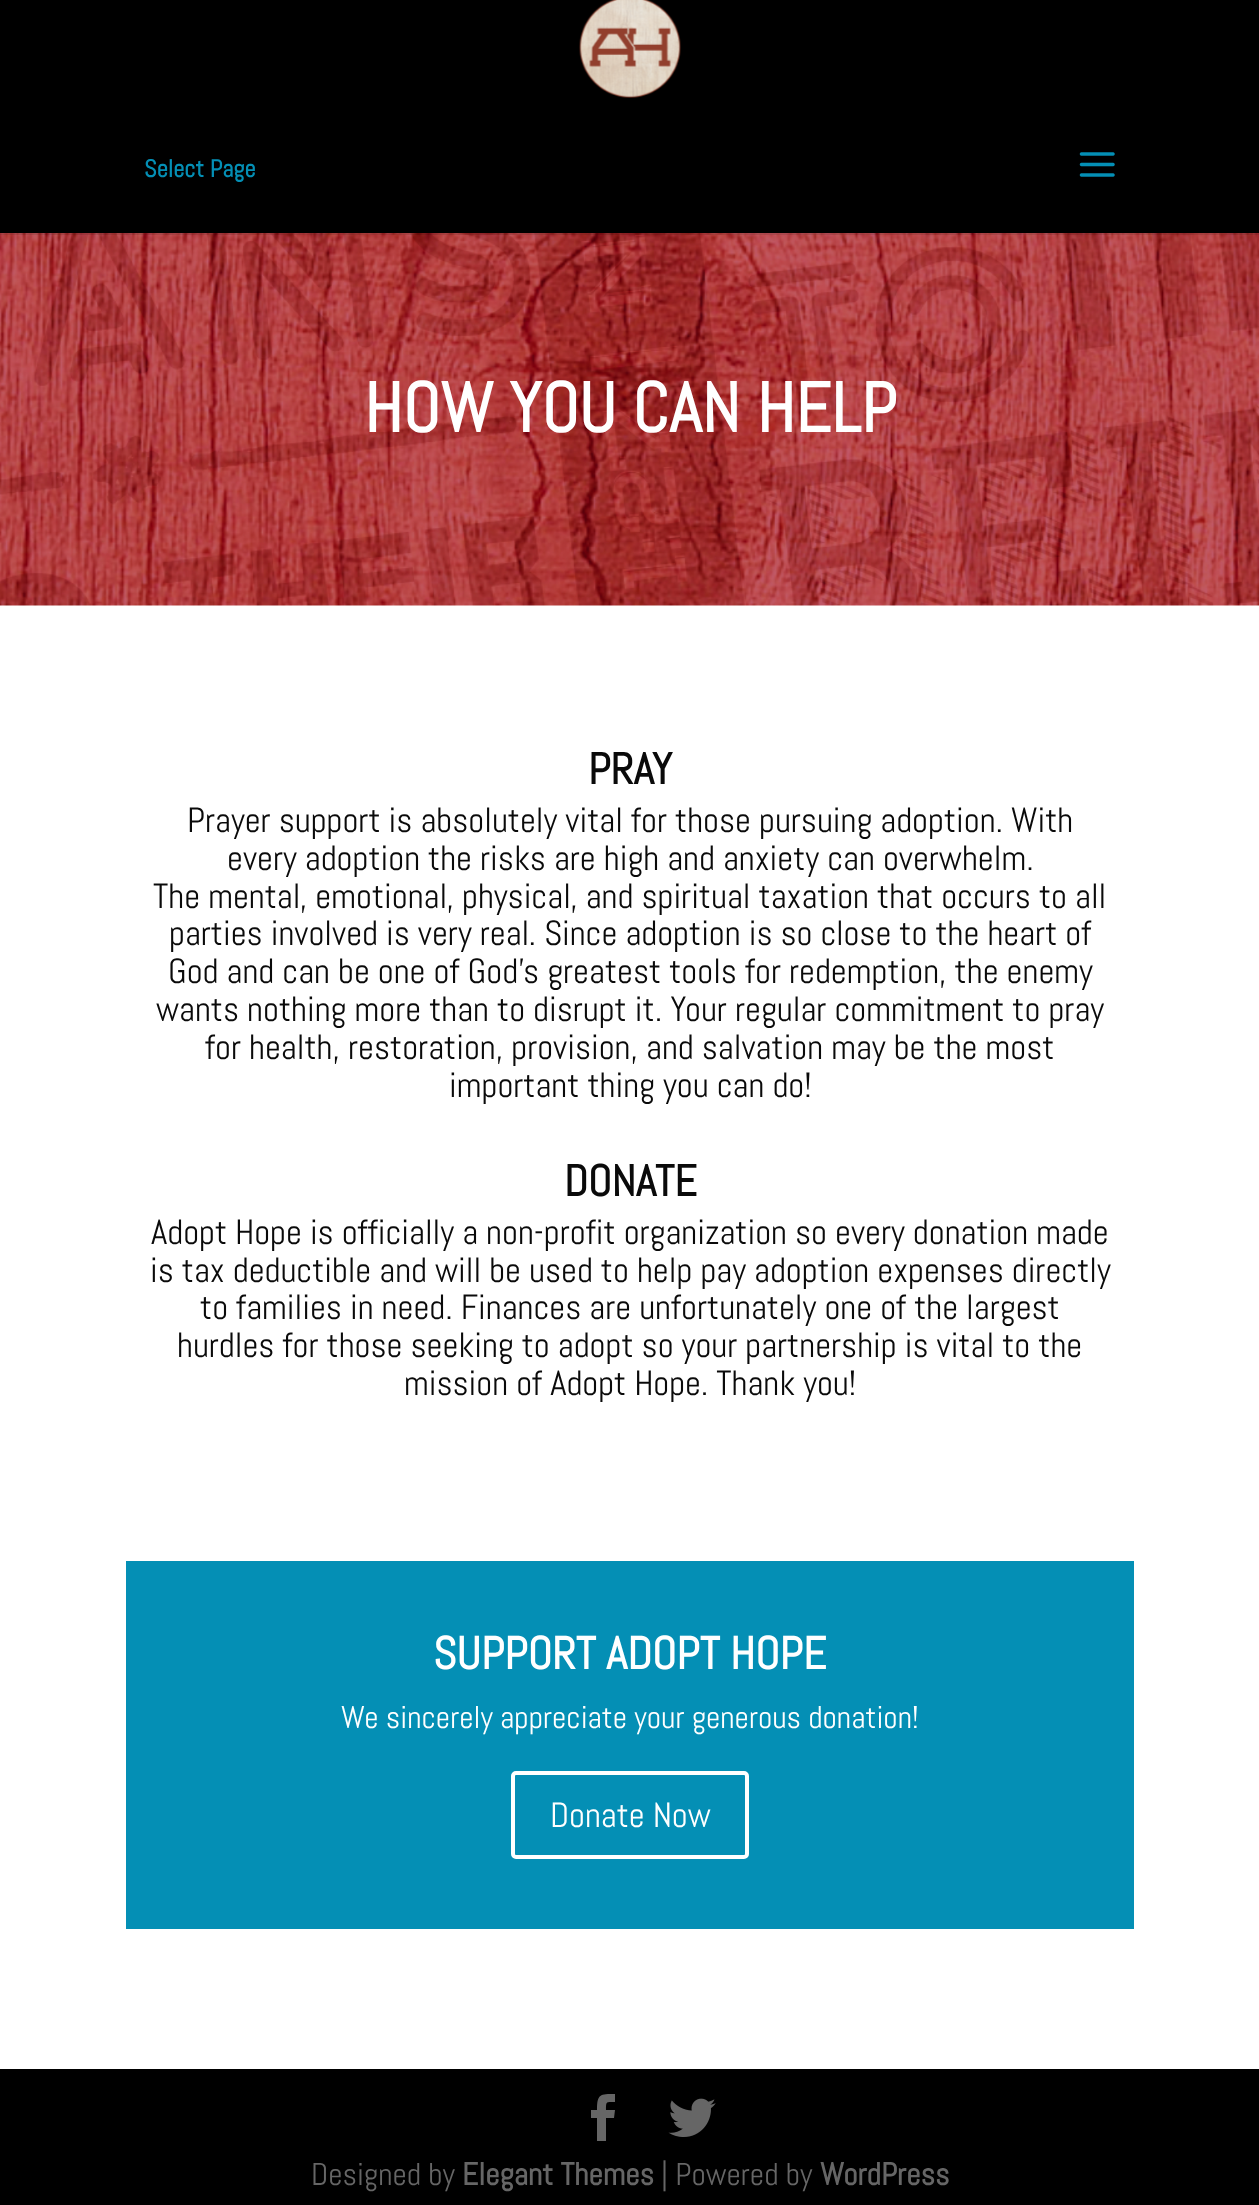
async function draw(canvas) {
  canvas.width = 1259;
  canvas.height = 2205;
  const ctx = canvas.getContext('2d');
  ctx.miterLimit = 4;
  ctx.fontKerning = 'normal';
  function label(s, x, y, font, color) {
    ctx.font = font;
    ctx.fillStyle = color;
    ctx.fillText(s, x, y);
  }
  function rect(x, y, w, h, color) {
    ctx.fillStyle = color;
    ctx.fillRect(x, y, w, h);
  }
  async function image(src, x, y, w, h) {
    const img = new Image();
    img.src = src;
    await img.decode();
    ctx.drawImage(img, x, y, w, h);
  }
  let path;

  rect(0, 0, 1259, 2205, '#000');
  rect(0, 605, 1259, 1464, '#fff');
  await image('assets/img3.png', 0, 233, 1259, 373);
  rect(0, 233, 1259, 2, '#0000001a');
  await image('assets/img1.png', 579, 0, 102, 98);
  label('Select Page', 144, 177, 'bold 24.5px Abel', '#048fb5');
  await image('assets/img2.png', 1079, 152, 36, 25);
  label('HOW YOU CAN HELP', 364, 432, 'bold 70px Abel', '#fff');
  label('PRAY', 588, 784, 'bold 44px Abel', '#0a0a0a');
  label('Prayer support is absolutely vital for those pursuing adoption. With', 187, 832, '35px Abel', '#0a0a0a');
  label('every adoption the risks are high and anxiety can overwhelm.', 227, 870, '35px Abel', '#0a0a0a');
  label('The mental, emotional, physical, and spiritual taxation that occurs to all', 153, 908, '35px Abel', '#0a0a0a');
  label('parties involved is very real. Since adoption is so close to the heart of', 169, 945, '35px Abel', '#0a0a0a');
  label('God and can be one of God’s greatest tools for redemption, the enemy', 168, 983, '35px Abel', '#0a0a0a');
  label('wants nothing more than to disrupt it. Your regular commitment to pray', 156, 1021, '35px Abel', '#0a0a0a');
  label('for health, restoration, provision, and salvation may be the most', 205, 1059, '35px Abel', '#0a0a0a');
  label('important thing you can do!', 449, 1097, '35px Abel', '#0a0a0a');
  label('DONATE', 564, 1196, 'bold 44px Abel', '#0a0a0a');
  label('Adopt Hope is officially a non-profit organization so every donation made', 151, 1244, '35px Abel', '#0a0a0a');
  label('is tax deductible and will be used to help pay adoption expenses directly', 150, 1282, '35px Abel', '#0a0a0a');
  label('to families in need. Finances are unfortunately one of the largest', 200, 1319, '35px Abel', '#0a0a0a');
  label('hurdles for those seeking to adopt so your partnership is vital to the', 177, 1357, '35px Abel', '#0a0a0a');
  label('mission of Adopt Hope. Thank you!', 404, 1395, '35px Abel', '#0a0a0a');
  rect(126, 1561, 1008, 368, '#048fb5');
  label('SUPPORT ADOPT HOPE', 433, 1669, 'bold 45.5px Abel', '#fff');
  label('We sincerely appreciate your generous donation!', 341, 1728, '31.5px Abel', '#fff');
  ctx.beginPath();
  ctx.roundRect(513, 1773, 234, 84, 3);
  ctx.strokeStyle = '#fff';
  ctx.lineWidth = 4;
  ctx.stroke();
  label('Donate Now', 550, 1827, '35px Abel', '#fff');
  ctx.fillStyle = '#666';
  path = new Path2D('M597 2141H606V2118H614L615 2110H606C606 2101 606 2102 615 2102V2094C600 2094 597 2094 597 2110H591V2118H597Z');
  ctx.fill(path);
  await image('assets/img4.png', 668, 2098, 48, 39);
  label('Designed by', 311, 2185, '31.5px Abel', '#666');
  label('Elegant Themes', 462, 2185, 'bold 31.5px Abel', '#666');
  label('| Powered by', 661, 2185, '31.5px Abel', '#666');
  label('WordPress', 820, 2185, 'bold 31.5px Abel', '#666');
}

draw(document.querySelector('canvas'));
